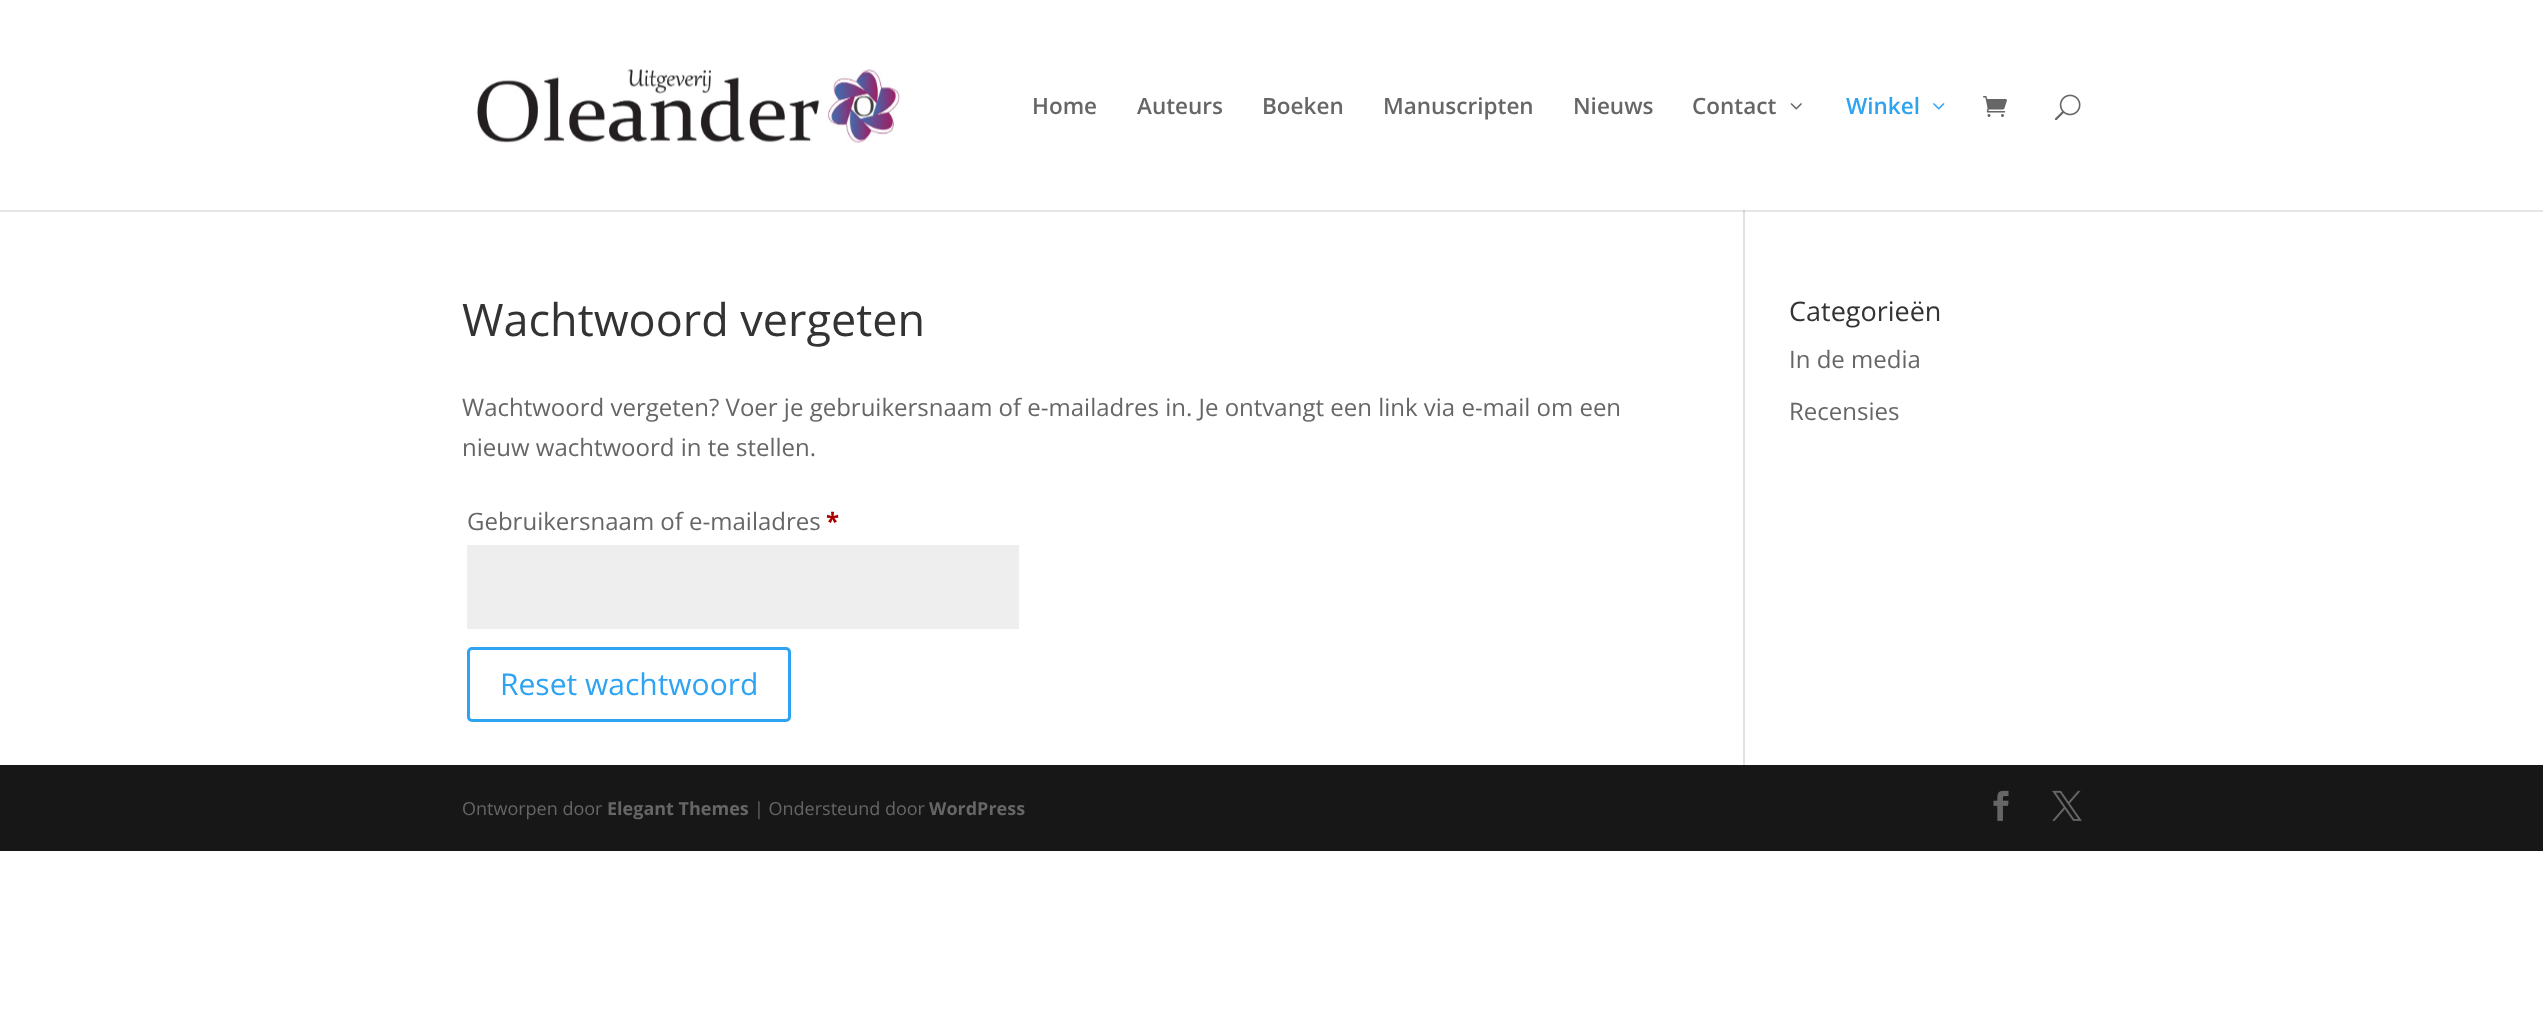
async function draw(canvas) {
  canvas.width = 2543;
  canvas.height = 1035;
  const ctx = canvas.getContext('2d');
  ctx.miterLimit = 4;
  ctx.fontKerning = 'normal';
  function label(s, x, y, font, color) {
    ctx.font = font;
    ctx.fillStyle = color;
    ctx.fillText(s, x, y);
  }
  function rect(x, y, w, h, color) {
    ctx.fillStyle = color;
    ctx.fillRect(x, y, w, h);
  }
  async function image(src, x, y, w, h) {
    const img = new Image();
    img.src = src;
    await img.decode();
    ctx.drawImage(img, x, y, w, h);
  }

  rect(0, 0, 2543, 1035, '#fff');
  rect(0, 210, 2543, 2, '#e6e6e6');
  await image('assets/img1.png', 477, 69, 423, 74);
  label('Home', 1032, 114, '600 22.5px Open Sans', '#666');
  label('Auteurs', 1137, 114, '600 22.5px Open Sans', '#666');
  label('Boeken', 1262, 114, '600 22.5px Open Sans', '#666');
  label('Manuscripten', 1383, 114, '600 22.5px Open Sans', '#666');
  label('Nieuws', 1573, 114, '600 22.5px Open Sans', '#666');
  label('Contact', 1692, 114, '600 22.5px Open Sans', '#666');
  await image('assets/img2.png', 1790, 103, 12, 7);
  label('Winkel', 1846, 114, '600 22.5px Open Sans', '#2ea3f2');
  await image('assets/img3.png', 1933, 103, 12, 7);
  await image('assets/img4.png', 1983, 96, 24, 21);
  await image('assets/img5.png', 2054, 94, 27, 27);
  rect(1743, 210, 2, 555, '#e2e2e2');
  rect(1743, 210, 2, 2, '#cbcbcb');
  label('Wachtwoord vergeten', 462, 336, '45px Open Sans', '#333');
  label('Wachtwoord vergeten? Voer je gebruikersnaam of e-mailadres in. Je ontvangt een link via e-mail om een', 462, 416, '24px Open Sans', '#666');
  label('nieuw wachtwoord in te stellen.', 462, 456, '24px Open Sans', '#666');
  label('Gebruikersnaam of e-mailadres', 467, 530, '24px Open Sans', '#666');
  label('*', 826, 530, 'bold 24px Open Sans', '#a00');
  rect(467, 545, 552, 84, '#eee');
  ctx.beginPath();
  ctx.roundRect(468.5, 648.5, 321, 72, 3.5);
  ctx.strokeStyle = '#2ea3f2';
  ctx.lineWidth = 3;
  ctx.stroke();
  label('Reset wachtwoord', 500, 695, '30px Open Sans', '#2ea3f2');
  label('Categorieën', 1789, 321, '27px Open Sans', '#333');
  label('In de media', 1789, 368, '24px Open Sans', '#666');
  label('Recensies', 1789, 420, '24px Open Sans', '#666');
  rect(0, 765, 2543, 86, '#171717');
  label('Ontworpen door', 462, 815, '18px Open Sans', '#666');
  label('Elegant Themes', 607, 815, 'bold 18px Open Sans', '#666');
  label('| Ondersteund door', 754, 815, '18px Open Sans', '#666');
  label('WordPress', 929, 815, 'bold 18px Open Sans', '#666');
  await image('assets/img6.png', 1993, 790, 16, 31);
  await image('assets/img7.png', 2052, 790, 30, 31);
}

draw(document.querySelector('canvas'));
